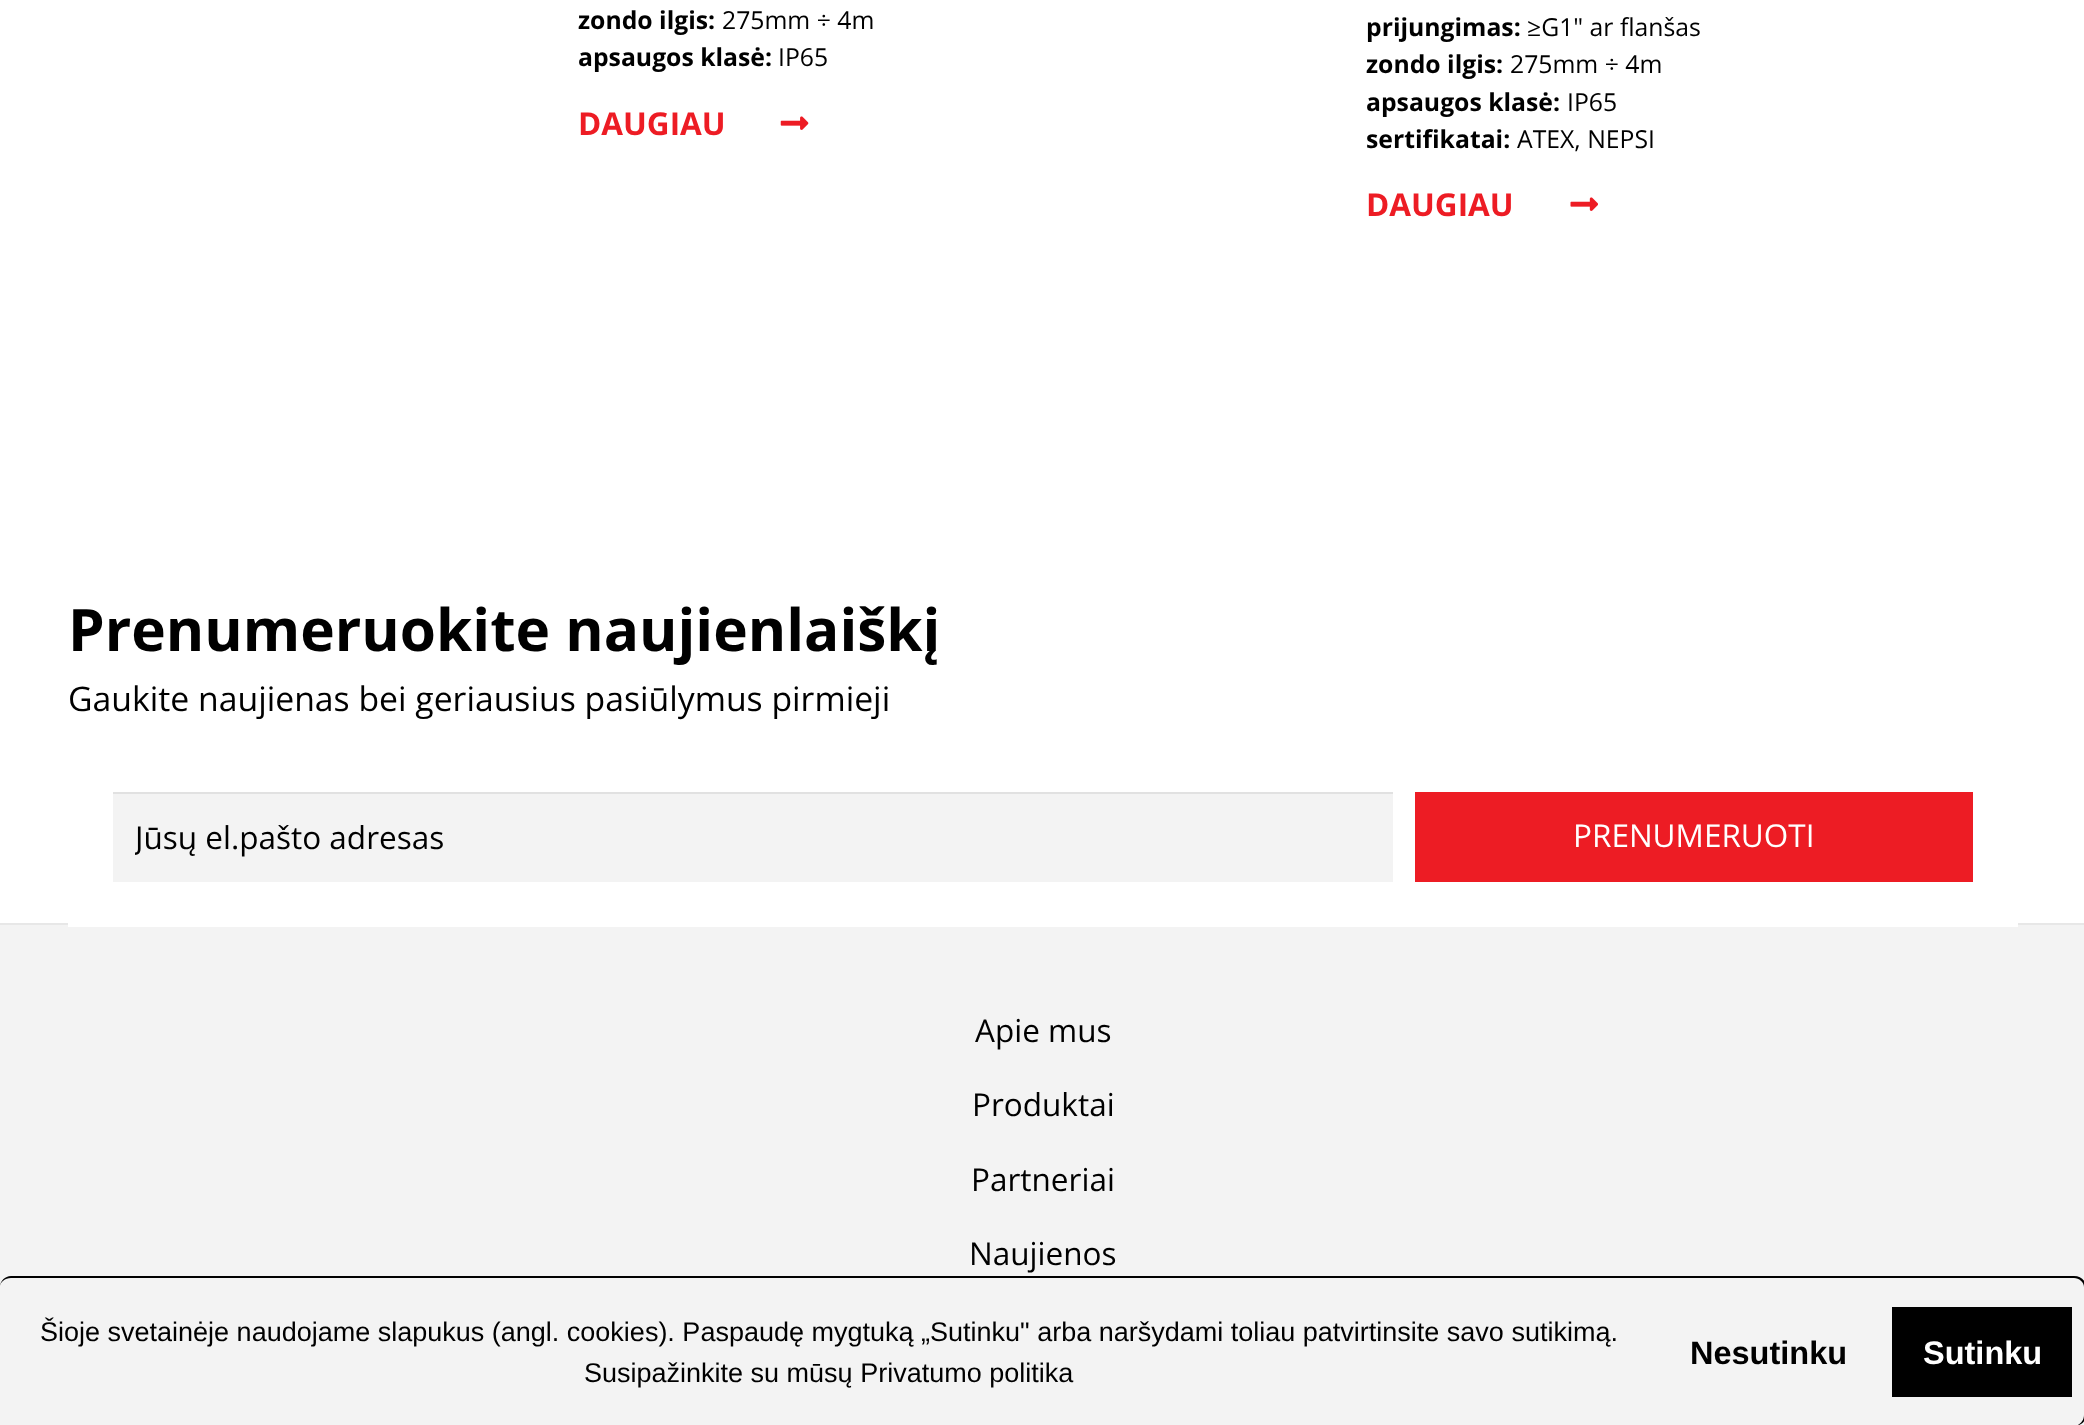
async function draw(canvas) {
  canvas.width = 2084;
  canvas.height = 1425;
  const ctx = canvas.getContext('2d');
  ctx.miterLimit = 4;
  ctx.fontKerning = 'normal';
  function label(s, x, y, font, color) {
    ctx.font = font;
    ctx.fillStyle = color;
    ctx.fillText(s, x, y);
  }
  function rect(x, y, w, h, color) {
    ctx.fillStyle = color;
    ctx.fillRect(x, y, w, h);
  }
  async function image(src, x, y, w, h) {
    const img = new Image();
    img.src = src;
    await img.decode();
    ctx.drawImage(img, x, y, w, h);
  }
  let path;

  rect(0, 0, 2084, 1425, '#fff');
  label('zondo ilgis:', 578, 29, 'bold 24.75px Open Sans', '#000');
  label('275mm ÷ 4m', 722, 29, '24.75px Open Sans', '#000');
  label('apsaugos klasė:', 578, 66, 'bold 24.75px Open Sans', '#000');
  label('IP65', 778, 66, '24.75px Open Sans', '#000');
  label('DAUGIAU', 578, 135, 'bold 31.5px Open Sans', '#ed1c24');
  await image('assets/img1.png', 780, 116, 29, 14);
  label('prijungimas:', 1366, 36, 'bold 24.75px Open Sans', '#000');
  label('≥G1" ar flanšas', 1527, 36, '24.75px Open Sans', '#000');
  label('zondo ilgis:', 1366, 73, 'bold 24.75px Open Sans', '#000');
  label('275mm ÷ 4m', 1510, 73, '24.75px Open Sans', '#000');
  label('apsaugos klasė:', 1366, 111, 'bold 24.75px Open Sans', '#000');
  label('IP65', 1567, 111, '24.75px Open Sans', '#000');
  label('sertifikatai:', 1366, 148, 'bold 24.75px Open Sans', '#000');
  label('ATEX, NEPSI', 1517, 148, '24.75px Open Sans', '#000');
  label('DAUGIAU', 1366, 216, 'bold 31.5px Open Sans', '#ed1c24');
  await image('assets/img2.png', 1570, 197, 28, 14);
  label('Prenumeruokite naujienlaiškį', 68, 651, 'bold 58.5px Open Sans', '#000');
  label('Gaukite naujienas bei geriausius pasiūlymus pirmieji', 68, 711, '33.75px Open Sans', '#000');
  rect(0, 925, 2084, 500, '#f3f3f3');
  rect(0, 923, 2084, 2, '#e7e7e7');
  rect(68, 923, 1950, 4, '#fff');
  rect(113, 794, 1280, 88, '#f3f3f3');
  rect(113, 792, 1280, 2, '#e1e1e1');
  ctx.save();
  ctx.beginPath();
  ctx.rect(135, 815, 1235, 42);
  ctx.clip();
  label('Jūsų el.pašto adresas', 135, 849, '31.5px Open Sans', '#000');
  ctx.restore();
  rect(1415, 792, 558, 90, '#ed1c24');
  label('PRENUMERUOTI', 1573, 847, '31.5px Open Sans', '#fff');
  label('Apie mus', 975, 1042, '31.5px Open Sans', '#000');
  label('Produktai', 972, 1116, '31.5px Open Sans', '#000');
  label('Partneriai', 971, 1191, '31.5px Open Sans', '#000');
  label('Naujienos', 969, 1265, '31.5px Open Sans', '#000');
  path = new Path2D('M11 1276H2074C2081 1276 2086 1281 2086 1287V1415C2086 1421 2081 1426 2074 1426H11C5 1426 0 1421 0 1415V1287C0 1281 5 1276 11 1276ZM11 1278H2074C2079 1278 2084 1282 2084 1287V1415C2084 1421 2079 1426 2074 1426H11C5 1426 0 1421 0 1415V1287C0 1282 5 1278 11 1278Z');
  ctx.fill(path, 'evenodd');
  label('Šioje svetainėje naudojame slapukus (angl. cookies). Paspaudę mygtuką „Sutinku" arba naršydami toliau patvirtinsite savo sutikimą.', 40, 1341, '27px Liberation Sans', '#000');
  label('Susipažinkite su mūsų Privatumo politika', 584, 1382, '27px Liberation Sans', '#000');
  label('Nesutinku', 1690, 1364, 'bold 32.5px Liberation Sans', '#000');
  rect(1892, 1307, 180, 90, '#000');
  label('Sutinku', 1923, 1364, 'bold 32.5px Liberation Sans', '#fff');
}

draw(document.querySelector('canvas'));
